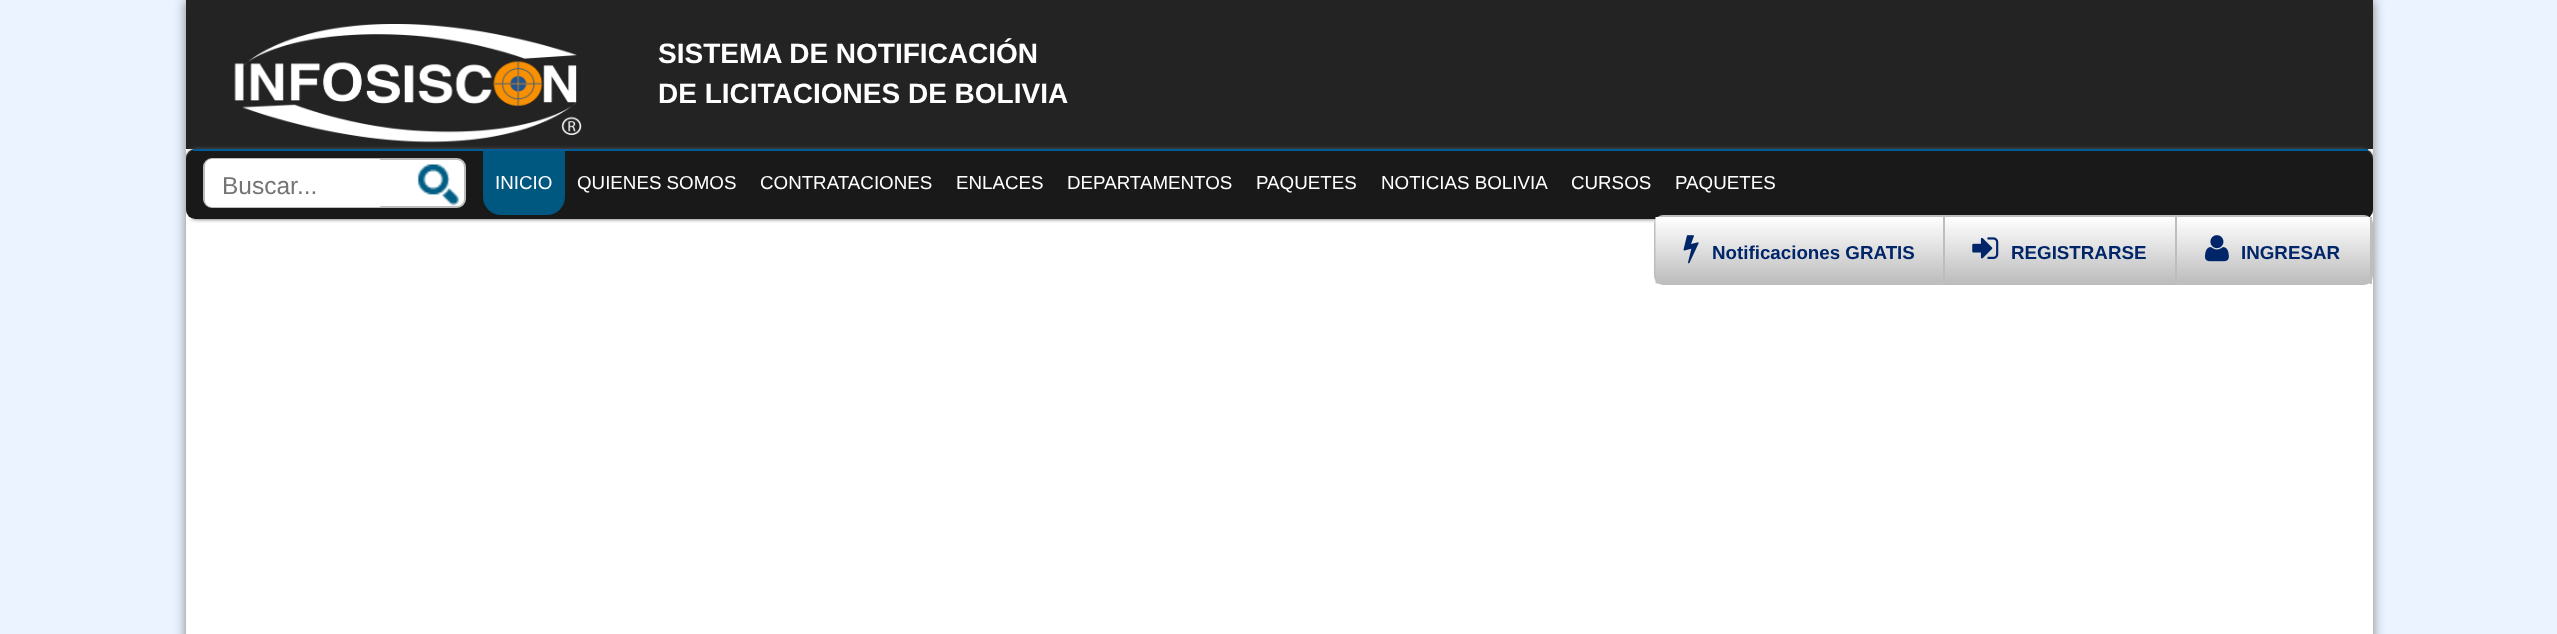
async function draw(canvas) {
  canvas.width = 2557;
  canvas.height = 634;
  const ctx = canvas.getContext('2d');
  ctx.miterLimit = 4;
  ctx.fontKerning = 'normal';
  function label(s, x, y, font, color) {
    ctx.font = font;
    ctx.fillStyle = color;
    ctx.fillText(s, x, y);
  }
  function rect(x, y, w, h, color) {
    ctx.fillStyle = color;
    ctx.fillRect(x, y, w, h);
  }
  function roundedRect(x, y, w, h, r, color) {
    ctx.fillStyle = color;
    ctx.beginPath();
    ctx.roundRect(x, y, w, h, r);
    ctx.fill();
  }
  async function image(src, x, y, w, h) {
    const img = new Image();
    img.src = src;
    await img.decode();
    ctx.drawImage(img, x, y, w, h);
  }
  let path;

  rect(0, 0, 2557, 634, '#eaf3ff');
  ctx.fillStyle = '#808080';
  ctx.filter = 'blur(6px)';
  ctx.beginPath();
  ctx.rect(186, 0, 2187, 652);
  ctx.fill();
  ctx.filter = 'none';
  rect(186, 149, 2187, 485, '#fff');
  rect(186, 0, 2187, 149, '#232323');
  await image('assets/img1.png', 234, 24, 348, 119);
  label('SISTEMA DE NOTIFICACIÓN', 658, 63, 'bold 28px Liberation Sans', '#fff');
  label('DE LICITACIONES DE BOLIVIA', 658, 103, 'bold 28px Liberation Sans', '#fff');
  roundedRect(186, 149, 2187, 70, 9, '#191919');
  ctx.save();
  ctx.beginPath();
  ctx.rect(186, 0, 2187, 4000);
  ctx.clip();
  path = new Path2D('M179 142H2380V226H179ZM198 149H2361C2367.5 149 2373 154.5 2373 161V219H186V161C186 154.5 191.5 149 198 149Z');
  ctx.clip(path, 'evenodd');
  ctx.fillStyle = '#555';
  ctx.filter = 'blur(2px)';
  ctx.beginPath();
  ctx.roundRect(186, 149, 2187, 70, 12);
  ctx.fill();
  ctx.filter = 'none';
  ctx.restore();
  rect(193, 149, 2175, 2, '#005b96');
  ctx.fillStyle = '#fff';
  ctx.beginPath();
  ctx.roundRect(204, 159, 261, 48, 8);
  ctx.fill();
  ctx.strokeStyle = '#bcbcbc';
  ctx.lineWidth = 2;
  ctx.stroke();
  ctx.save();
  ctx.beginPath();
  ctx.roundRect(205, 159, 259, 48, 7);
  ctx.clip();
  roundedRect(205, 151, 175, 70, 9, '#fff');
  ctx.restore();
  label('Buscar...', 222, 194, '24.5px Liberation Sans', '#757575');
  await image('assets/img2.png', 417, 164, 42, 42);
  ctx.fillStyle = '#005780';
  ctx.beginPath();
  ctx.roundRect(483, 151, 82, 64, [0, 0, 18, 18]);
  ctx.fill();
  label('INICIO', 495, 189, '18.75px Liberation Sans', '#fff');
  label('QUIENES SOMOS', 577, 189, '18.75px Liberation Sans', '#fff');
  label('CONTRATACIONES', 760, 189, '18.75px Liberation Sans', '#fff');
  label('ENLACES', 956, 189, '18.75px Liberation Sans', '#fff');
  label('DEPARTAMENTOS', 1067, 189, '18.75px Liberation Sans', '#fff');
  label('PAQUETES', 1256, 189, '18.75px Liberation Sans', '#fff');
  label('NOTICIAS BOLIVIA', 1381, 189, '18.75px Liberation Sans', '#fff');
  label('CURSOS', 1571, 189, '18.75px Liberation Sans', '#fff');
  label('PAQUETES', 1675, 189, '18.75px Liberation Sans', '#fff');
  ctx.beginPath();
  ctx.roundRect(1655, 216, 717, 68, 8);
  ctx.strokeStyle = '#bdbdbd';
  ctx.stroke();
  await image('assets/img3.png', 1655, 217, 288, 67);
  rect(1943, 217, 2, 67, '#bdbdbd');
  await image('assets/img4.png', 1683, 235, 16, 29);
  label('Notificaciones GRATIS', 1712, 259, 'bold 18.75px Liberation Sans', '#002569');
  await image('assets/img5.png', 1945, 217, 230, 66);
  rect(2175, 217, 2, 67, '#bdbdbd');
  await image('assets/img6.png', 1972, 237, 27, 22);
  label('REGISTRARSE', 2011, 259, 'bold 18.75px Liberation Sans', '#002569');
  await image('assets/img7.png', 2177, 217, 193, 67);
  rect(2370, 217, 2, 67, '#bdbdbd');
  await image('assets/img8.png', 2205, 235, 24, 27);
  label('INGRESAR', 2241, 259, 'bold 18.75px Liberation Sans', '#002569');
}

draw(document.querySelector('canvas'));
